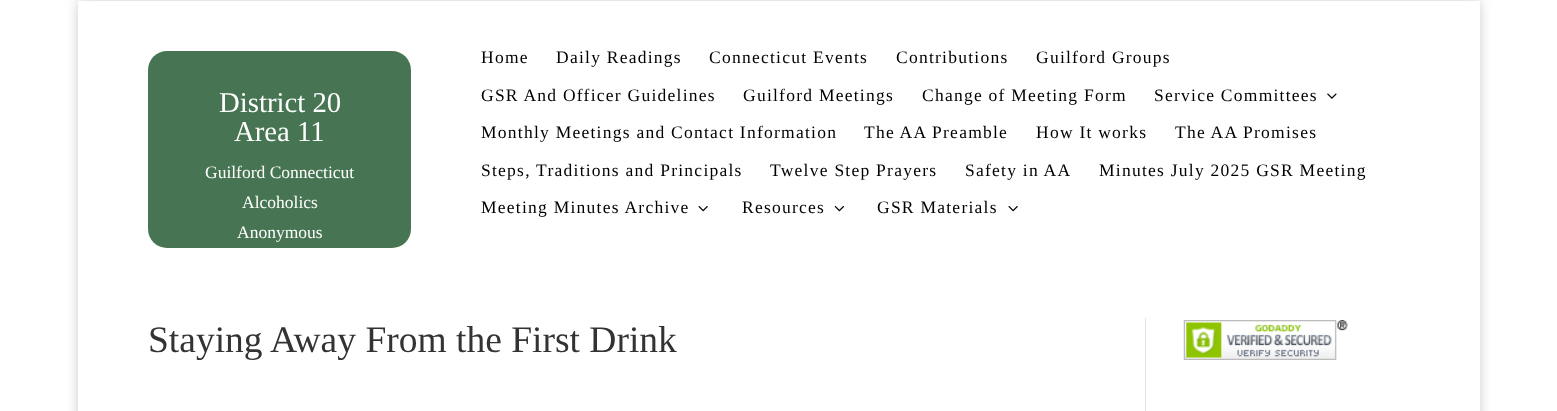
async function draw(canvas) {
  canvas.width = 1557;
  canvas.height = 411;
  const ctx = canvas.getContext('2d');
  ctx.miterLimit = 4;
  ctx.fontKerning = 'normal';
  function label(s, x, y, font, color) {
    ctx.font = font;
    ctx.fillStyle = color;
    ctx.fillText(s, x, y);
  }
  function rect(x, y, w, h, color) {
    ctx.fillStyle = color;
    ctx.fillRect(x, y, w, h);
  }
  function roundedRect(x, y, w, h, r, color) {
    ctx.fillStyle = color;
    ctx.beginPath();
    ctx.roundRect(x, y, w, h, r);
    ctx.fill();
  }
  async function image(src, x, y, w, h) {
    const img = new Image();
    img.src = src;
    await img.decode();
    ctx.drawImage(img, x, y, w, h);
  }
  let path;

  rect(0, 0, 1557, 411, '#fff');
  ctx.save();
  path = new Path2D('M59 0H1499V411H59ZM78 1H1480V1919H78Z');
  ctx.clip(path, 'evenodd');
  ctx.fillStyle = '#00000033';
  ctx.filter = 'blur(6px)';
  ctx.beginPath();
  ctx.rect(78, 1, 1402, 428);
  ctx.fill();
  ctx.filter = 'none';
  ctx.restore();
  rect(78, 1, 1402, 1, '#fff');
  roundedRect(148, 51, 263, 197, 19, '#477553');
  label('District 20', 219, 112, '28.75px Liberation Serif', '#fff');
  label('Area 11', 234, 141, '28.75px Liberation Serif', '#fff');
  label('Guilford Connecticut', 205, 178, '17.5px Liberation Serif', '#fff');
  label('Alcoholics', 242, 208, '17.5px Liberation Serif', '#fff');
  label('Anonymous', 237, 238, '17.5px Liberation Serif', '#fff');
  ctx.letterSpacing = '1.25px';
  label('Home', 481, 63, '17.5px Liberation Serif', '#000');
  label('Daily Readings', 556, 63, '17.5px Liberation Serif', '#000');
  label('Connecticut Events', 709, 63, '17.5px Liberation Serif', '#000');
  label('Contributions', 896, 63, '17.5px Liberation Serif', '#000');
  label('Guilford Groups', 1036, 63, '17.5px Liberation Serif', '#000');
  label('GSR And Officer Guidelines', 481, 101, '17.5px Liberation Serif', '#000');
  label('Guilford Meetings', 743, 101, '17.5px Liberation Serif', '#000');
  label('Change of Meeting Form', 922, 101, '17.5px Liberation Serif', '#000');
  label('Service Committees', 1154, 101, '17.5px Liberation Serif', '#000');
  await image('assets/img1.png', 1327, 93, 10, 6);
  label('Monthly Meetings and Contact Information', 481, 138, '17.5px Liberation Serif', '#000');
  label('The AA Preamble', 864, 138, '17.5px Liberation Serif', '#000');
  label('How It works', 1036, 138, '17.5px Liberation Serif', '#000');
  label('The AA Promises', 1175, 138, '17.5px Liberation Serif', '#000');
  label('Steps, Traditions and Principals', 481, 176, '17.5px Liberation Serif', '#000');
  label('Twelve Step Prayers', 770, 176, '17.5px Liberation Serif', '#000');
  label('Safety in AA', 965, 176, '17.5px Liberation Serif', '#000');
  label('Minutes July 2025 GSR Meeting', 1099, 176, '17.5px Liberation Serif', '#000');
  label('Meeting Minutes Archive', 481, 213, '17.5px Liberation Serif', '#000');
  await image('assets/img2.png', 698, 206, 10, 6);
  label('Resources', 742, 213, '17.5px Liberation Serif', '#000');
  await image('assets/img3.png', 834, 206, 10, 6);
  label('GSR Materials', 877, 213, '17.5px Liberation Serif', '#000');
  await image('assets/img2.png', 1008, 206, 10, 6);
  ctx.letterSpacing = '0px';
  label('Staying Away From the First Drink', 148, 352, '37.5px Liberation Serif', '#333');
  await image('assets/img4.png', 1183, 320, 165, 40);
  rect(1145, 318, 1, 93, '#e2e2e2');
}

draw(document.querySelector('canvas'));
